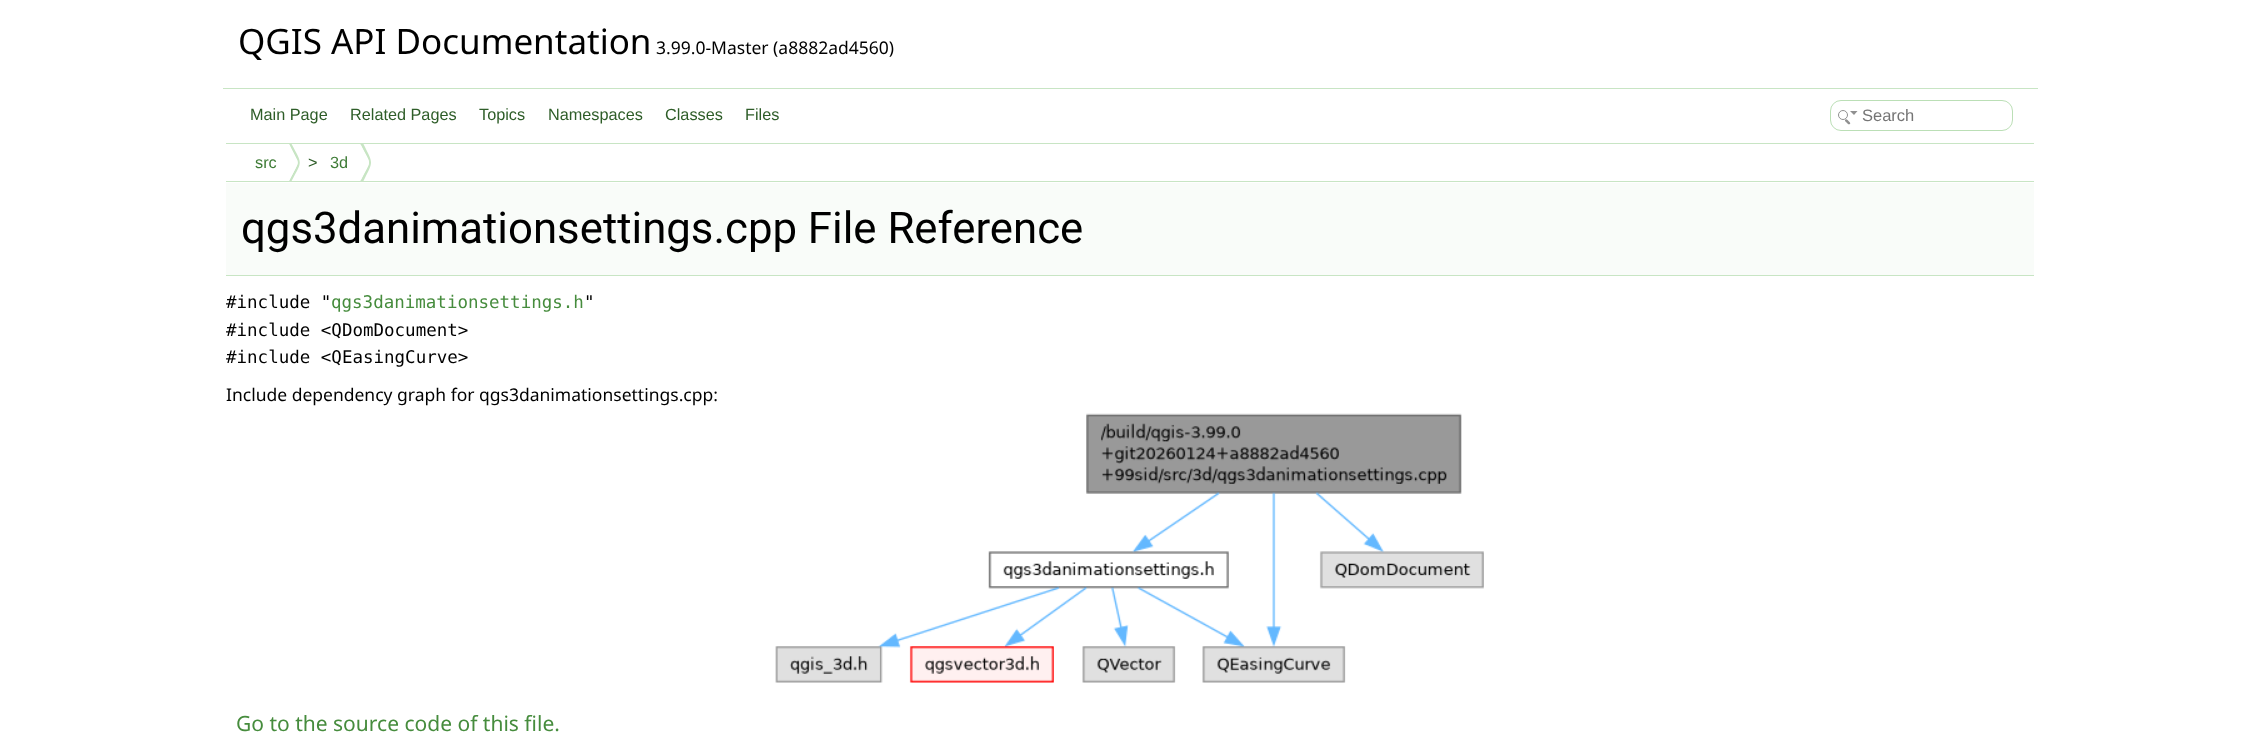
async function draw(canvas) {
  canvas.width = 2259;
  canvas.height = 743;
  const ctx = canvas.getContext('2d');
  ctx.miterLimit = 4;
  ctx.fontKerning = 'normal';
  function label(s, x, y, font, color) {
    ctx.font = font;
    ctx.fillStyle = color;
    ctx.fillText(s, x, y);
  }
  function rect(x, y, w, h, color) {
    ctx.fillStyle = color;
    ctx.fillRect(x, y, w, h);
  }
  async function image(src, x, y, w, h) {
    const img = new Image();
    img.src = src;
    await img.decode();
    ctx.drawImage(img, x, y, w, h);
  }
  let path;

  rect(0, 0, 2259, 743, '#fff');
  rect(223, 88, 1815, 1, '#c8e5c4');
  label('QGIS API Documentation', 238, 54, '35px Noto Sans', '#000');
  label('3.99.0-Master (a8882ad4560)', 656, 54, '17.5px Noto Sans', '#000');
  rect(226, 143, 1808, 1, '#c8e5c4');
  label('Main Page', 250, 120, '16.25px Liberation Sans', '#2e5d28');
  label('Related Pages', 350, 120, '16.25px Liberation Sans', '#2e5d28');
  label('Topics', 479, 120, '16.25px Liberation Sans', '#2e5d28');
  label('Namespaces', 548, 120, '16.25px Liberation Sans', '#2e5d28');
  label('Classes', 665, 120, '16.25px Liberation Sans', '#2e5d28');
  label('Files', 745, 120, '16.25px Liberation Sans', '#2e5d28');
  ctx.beginPath();
  ctx.roundRect(1830.5, 100.5, 182, 30, 10.5);
  ctx.strokeStyle = '#bbdfb6';
  ctx.stroke();
  ctx.beginPath();
  ctx.arc(1843, 115, 4.5, 0, 2 * Math.PI);
  ctx.strokeStyle = '#909090';
  ctx.stroke();
  ctx.fillStyle = '#909090';
  path = new Path2D('M1850 111H1857.5L1854 115ZM1845.5 119.5C1846.5 118.5 1848 120 1848.5 121C1849 121.5 1851 123 1850 124C1848.5 125 1847.5 123.5 1846.5 122.5C1846 122 1844 120.5 1845.5 119.5Z');
  ctx.fill(path);
  label('Search', 1862, 121, '16.5px Liberation Sans', '#757575');
  rect(226, 181, 1808, 1, '#c8e5c4');
  label('src', 255, 168, '16.25px Liberation Sans', '#3d7b35');
  ctx.save();
  ctx.beginPath();
  ctx.rect(226, 144, 1808, 37);
  ctx.clip();
  ctx.fillStyle = '#c8e5c4';
  path = new Path2D('M290 141V143L289 144C300 167 300 159 289 181L288 178L290 184C303 159 303 166 290 141Z');
  ctx.fill(path);
  ctx.restore();
  ctx.fillStyle = '#fff';
  path = new Path2D('M289 144L297.5 160.5C298 161.5 298 163.5 297.5 164.5L289 181C283.5 171 283.5 154 289 144Z');
  ctx.fill(path);
  label('>', 308, 168, '16.25px Liberation Sans', '#2e5d28');
  label('3d', 330, 168, '16.25px Liberation Sans', '#3d7b35');
  ctx.save();
  ctx.beginPath();
  ctx.rect(226, 144, 1808, 37);
  ctx.clip();
  ctx.fillStyle = '#c8e5c4';
  path = new Path2D('M362 141L360 144C372 166 372 159 360 181L362 184C374 159 374 166 362 141Z');
  ctx.fill(path);
  ctx.restore();
  ctx.fillStyle = '#fff';
  path = new Path2D('M360.5 144L368.5 160.5C369 161.5 369 163.5 368.5 164.5L360.5 181C355 171 355 154 360.5 144Z');
  ctx.fill(path);
  rect(226, 183, 1808, 92, '#f9fcf9');
  rect(226, 275, 1808, 1, '#c8e5c4');
  label('qgs3danimationsettings.cpp File Reference', 241, 243, '43.75px Roboto', '#000');
  label('#include "', 226, 308, '17.5px DejaVu Sans Mono', '#000');
  label('qgs3danimationsettings.h', 331, 308, '17.5px DejaVu Sans Mono', '#468c3d');
  label('"', 584, 308, '17.5px DejaVu Sans Mono', '#000');
  label('#include <QDomDocument>', 226, 336, '17.5px DejaVu Sans Mono', '#000');
  label('#include <QEasingCurve>', 226, 363, '17.5px DejaVu Sans Mono', '#000');
  label('Include dependency graph for qgs3danimationsettings.cpp:', 226, 401, '17.5px Noto Sans', '#000');
  await image('assets/img1.png', 775, 413, 709, 270);
  label('Go to the source code of this file.', 236, 731, '21px Noto Sans', '#468c3d');
}

draw(document.querySelector('canvas'));
